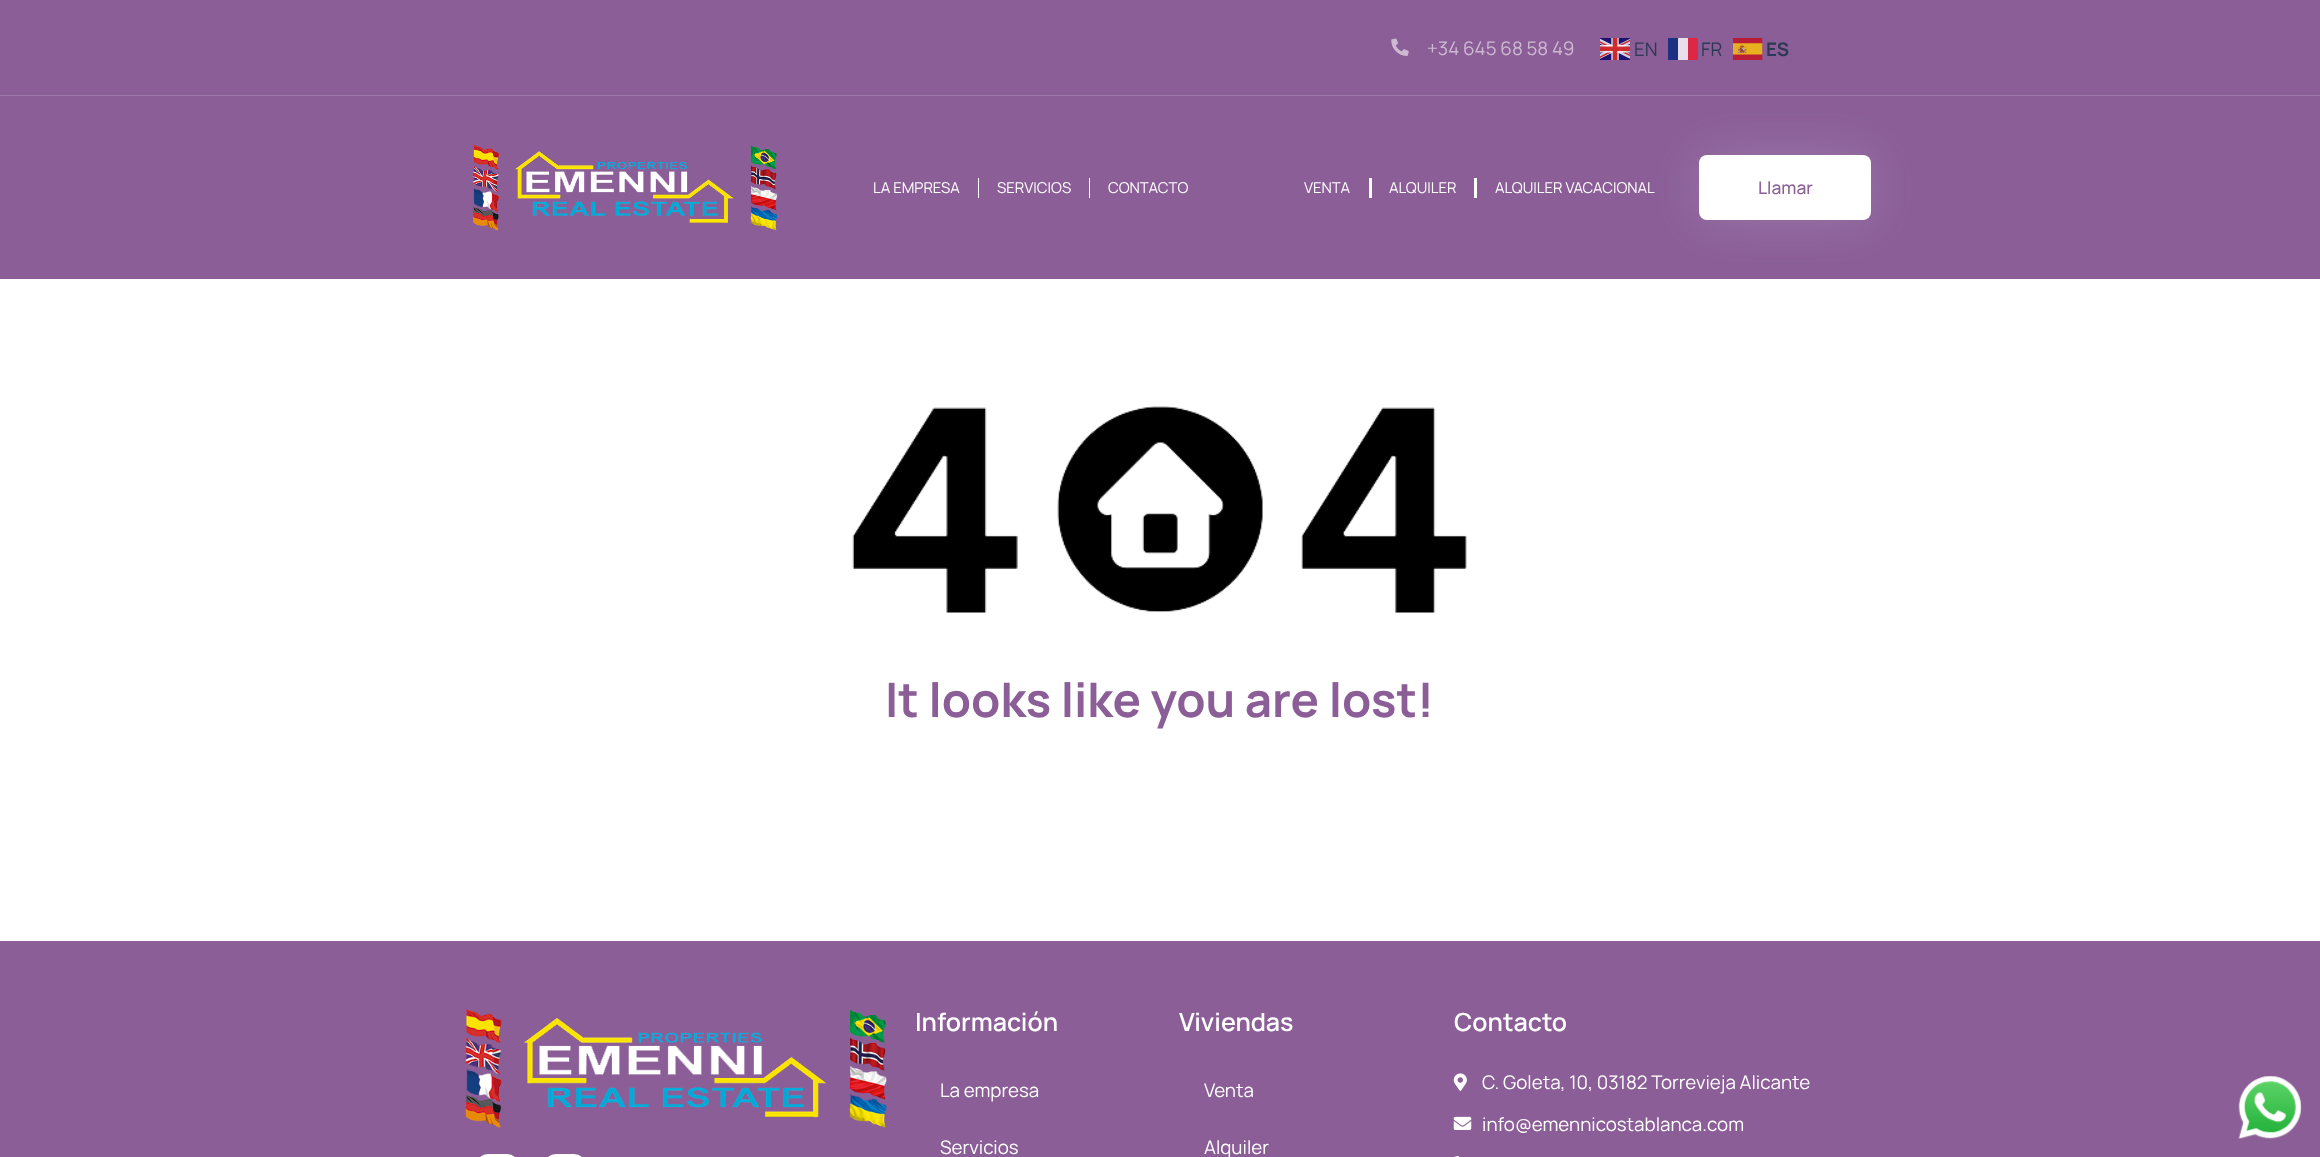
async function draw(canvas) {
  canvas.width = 2320;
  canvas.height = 1157;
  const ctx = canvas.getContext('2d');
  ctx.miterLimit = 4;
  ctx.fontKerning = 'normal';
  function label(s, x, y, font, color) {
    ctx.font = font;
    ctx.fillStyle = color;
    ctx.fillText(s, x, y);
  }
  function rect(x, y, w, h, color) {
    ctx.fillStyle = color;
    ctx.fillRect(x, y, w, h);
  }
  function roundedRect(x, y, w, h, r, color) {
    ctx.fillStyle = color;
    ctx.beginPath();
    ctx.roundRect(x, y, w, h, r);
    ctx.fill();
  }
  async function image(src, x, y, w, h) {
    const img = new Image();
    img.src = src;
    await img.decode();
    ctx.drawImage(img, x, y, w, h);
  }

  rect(0, 0, 2320, 1157, '#fff');
  rect(0, 0, 2320, 95, '#8b5e97');
  rect(0, 95, 2320, 1, '#9e78a8');
  await image('assets/img1.png', 1391, 38, 18, 18);
  label('+34 645 68 58 49', 1427, 55, '18.75px Manrope', '#cdbad2');
  await image('assets/img2.png', 1600, 38, 30, 22);
  label('EN', 1634, 56, '18.75px Manrope', '#2d3a56');
  label('FR', 1701, 56, '18.75px Manrope', '#2d3a56');
  rect(1678, 38, 10, 22, '#e8dfea');
  rect(1668, 38, 10, 22, '#1c3184');
  rect(1688, 38, 10, 22, '#de2645');
  await image('assets/img3.png', 1733, 38, 30, 22);
  label('ES', 1766, 56, 'bold 18.75px Manrope', '#2d3a56');
  rect(0, 96, 2320, 183, '#8b5e97');
  await image('assets/img4.png', 473, 145, 305, 86);
  label('LA EMPRESA', 873, 193, '15px Manrope', '#fff');
  rect(978, 178, 1, 20, '#fff');
  label('SERVICIOS', 997, 193, '15px Manrope', '#fff');
  rect(1089, 178, 1, 20, '#fff');
  label('CONTACTO', 1108, 193, '15px Manrope', '#fff');
  label('VENTA', 1304, 193, '15px Manrope', '#fff');
  rect(1369, 178, 3, 20, '#fff');
  label('ALQUILER', 1389, 193, '15px Manrope', '#fff');
  rect(1474, 178, 3, 20, '#fff');
  ctx.fillStyle = '#d8e4fe30';
  ctx.filter = 'blur(25px)';
  ctx.beginPath();
  ctx.roundRect(1699, 155, 172, 65, 8);
  ctx.fill();
  ctx.filter = 'none';
  label('ALQUILER VACACIONAL', 1495, 193, '15px Manrope', '#fff');
  roundedRect(1699, 155, 172, 65, 8, '#fff');
  label('Llamar', 1758, 194, '500 17.5px Manrope', '#8b5e97');
  await image('assets/img5.png', 852, 406, 615, 207);
  label('It looks like you are lost!', 885, 717, 'bold 47.5px Manrope', '#8b5e97');
  rect(0, 941, 2320, 216, '#8b5e97');
  await image('assets/img6.png', 465, 1009, 422, 119);
  roundedRect(476, 1154, 43, 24, 21, '#fff');
  roundedRect(544, 1154, 42, 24, 21, '#fff');
  label('Información', 915, 1031, '600 25px Manrope', '#fff');
  label('La empresa', 940, 1097, '18.75px Manrope', '#fff');
  label('Servicios', 940, 1154, '18.75px Manrope', '#fff');
  label('Viviendas', 1179, 1031, '600 25px Manrope', '#fff');
  label('Venta', 1204, 1097, '18.75px Manrope', '#fff');
  label('Alquiler', 1204, 1154, '18.75px Manrope', '#fff');
  label('Contacto', 1454, 1031, '600 25px Manrope', '#fff');
  await image('assets/img7.png', 1453, 1073, 14, 18);
  label('C. Goleta, 10, 03182 Torrevieja Alicante', 1482, 1089, '18.75px Manrope', '#fff');
  await image('assets/img8.png', 1453, 1116, 19, 14);
  label('info@emennicostablanca.com', 1482, 1131, '18.75px Manrope', '#fff');
  await image('assets/img9.png', 1454, 1156, 5, 1);
  await image('assets/img10.png', 2238, 1076, 64, 64);
}

draw(document.querySelector('canvas'));
